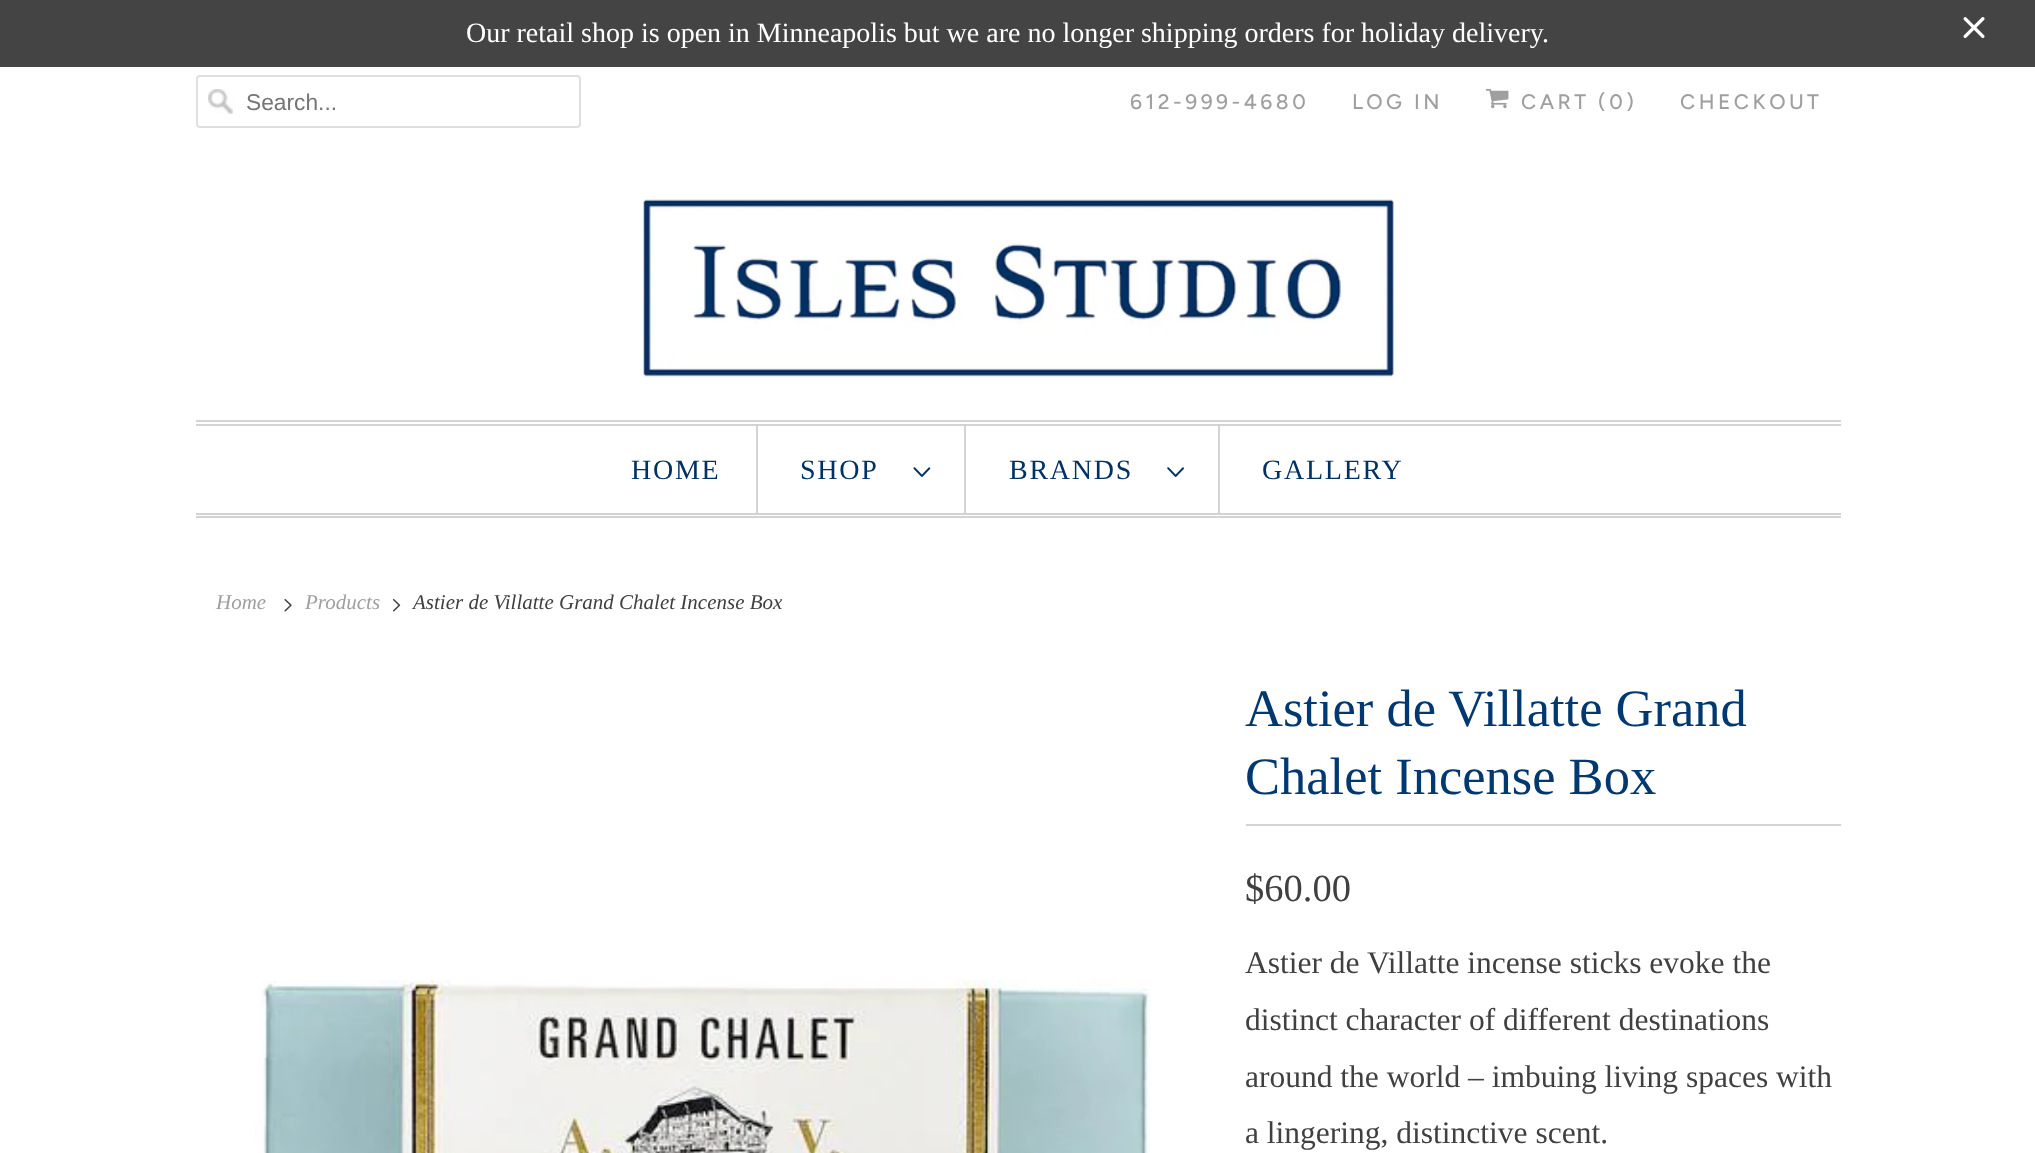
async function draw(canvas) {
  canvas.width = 2035;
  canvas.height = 1153;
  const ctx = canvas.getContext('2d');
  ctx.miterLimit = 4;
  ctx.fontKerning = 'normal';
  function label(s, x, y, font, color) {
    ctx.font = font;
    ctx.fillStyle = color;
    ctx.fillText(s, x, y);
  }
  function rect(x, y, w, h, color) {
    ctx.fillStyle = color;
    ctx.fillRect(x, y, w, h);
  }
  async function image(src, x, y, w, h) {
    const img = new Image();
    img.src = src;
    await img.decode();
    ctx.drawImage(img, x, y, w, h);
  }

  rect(0, 0, 2035, 1153, '#fff');
  rect(0, 0, 2035, 67, '#444');
  label('Our retail shop is open in Minneapolis but we are no longer shipping orders for holiday delivery.', 466, 42, '28px Liberation Serif', '#fff');
  await image('assets/img1.png', 1963, 17, 22, 22);
  await image('assets/img2.png', 208, 89, 25, 25);
  ctx.beginPath();
  ctx.roundRect(197, 76, 383, 51, 3);
  ctx.strokeStyle = '#dfdfdf';
  ctx.lineWidth = 2;
  ctx.stroke();
  label('Search...', 246, 110, '22.75px Liberation Sans', '#757575');
  ctx.letterSpacing = '3.5px';
  label('612-999-4680', 1130, 109, '500 21px Figtree', '#9f9f9f');
  label('LOG IN', 1352, 109, '500 21px Figtree', '#9f9f9f');
  await image('assets/img3.png', 1485, 88, 24, 21);
  label('CART (0)', 1521, 109, '500 21px Figtree', '#9f9f9f');
  label('CHECKOUT', 1680, 109, '500 21px Figtree', '#9f9f9f');
  await image('assets/img4.png', 642, 199, 753, 179);
  rect(196, 420, 1645, 2, '#d3d3d3');
  rect(196, 424, 1645, 2, '#d3d3d3');
  rect(196, 513, 1645, 2, '#d3d3d3');
  rect(196, 516, 1645, 2, '#d3d3d3');
  rect(756, 425, 2, 88, '#d3d3d3');
  ctx.letterSpacing = '1.75px';
  label('HOME', 631, 479, '28px Liberation Serif', '#003163');
  rect(964, 425, 2, 88, '#d3d3d3');
  label('SHOP', 800, 479, '28px Liberation Serif', '#003163');
  await image('assets/img5.png', 913, 467, 18, 10);
  rect(1218, 425, 2, 88, '#d3d3d3');
  label('BRANDS', 1009, 479, '28px Liberation Serif', '#003163');
  await image('assets/img6.png', 1167, 467, 17, 10);
  label('GALLERY', 1262, 479, '28px Liberation Serif', '#003163');
  ctx.letterSpacing = '0px';
  label('Home', 216, 609, 'italic 21px Liberation Serif', '#9f9f9f');
  await image('assets/img7.png', 284, 599, 8, 13);
  label('Products', 305, 609, 'italic 21px Liberation Serif', '#9f9f9f');
  await image('assets/img8.png', 392, 599, 9, 13);
  label('Astier de Villatte Grand Chalet Incense Box', 413, 609, 'italic 21px Liberation Serif', '#404040');
  await image('assets/img9.png', 255, 979, 896, 174);
  rect(1246, 824, 595, 2, '#d3d3d3');
  label('Astier de Villatte Grand', 1245, 726, '52.5px Liberation Serif', '#003872');
  label('Chalet Incense Box', 1245, 794, '52.5px Liberation Serif', '#003872');
  label('$60.00', 1245, 901, '38.5px Liberation Serif', '#404040');
  label('Astier de Villatte incense sticks evoke the', 1245, 973, '31.5px Liberation Serif', '#404040');
  label('distinct character of different destinations', 1245, 1030, '31.5px Liberation Serif', '#404040');
  label('around the world – imbuing living spaces with', 1245, 1087, '31.5px Liberation Serif', '#404040');
  label('a lingering, distinctive scent.', 1245, 1143, '31.5px Liberation Serif', '#404040');
}

draw(document.querySelector('canvas'));
